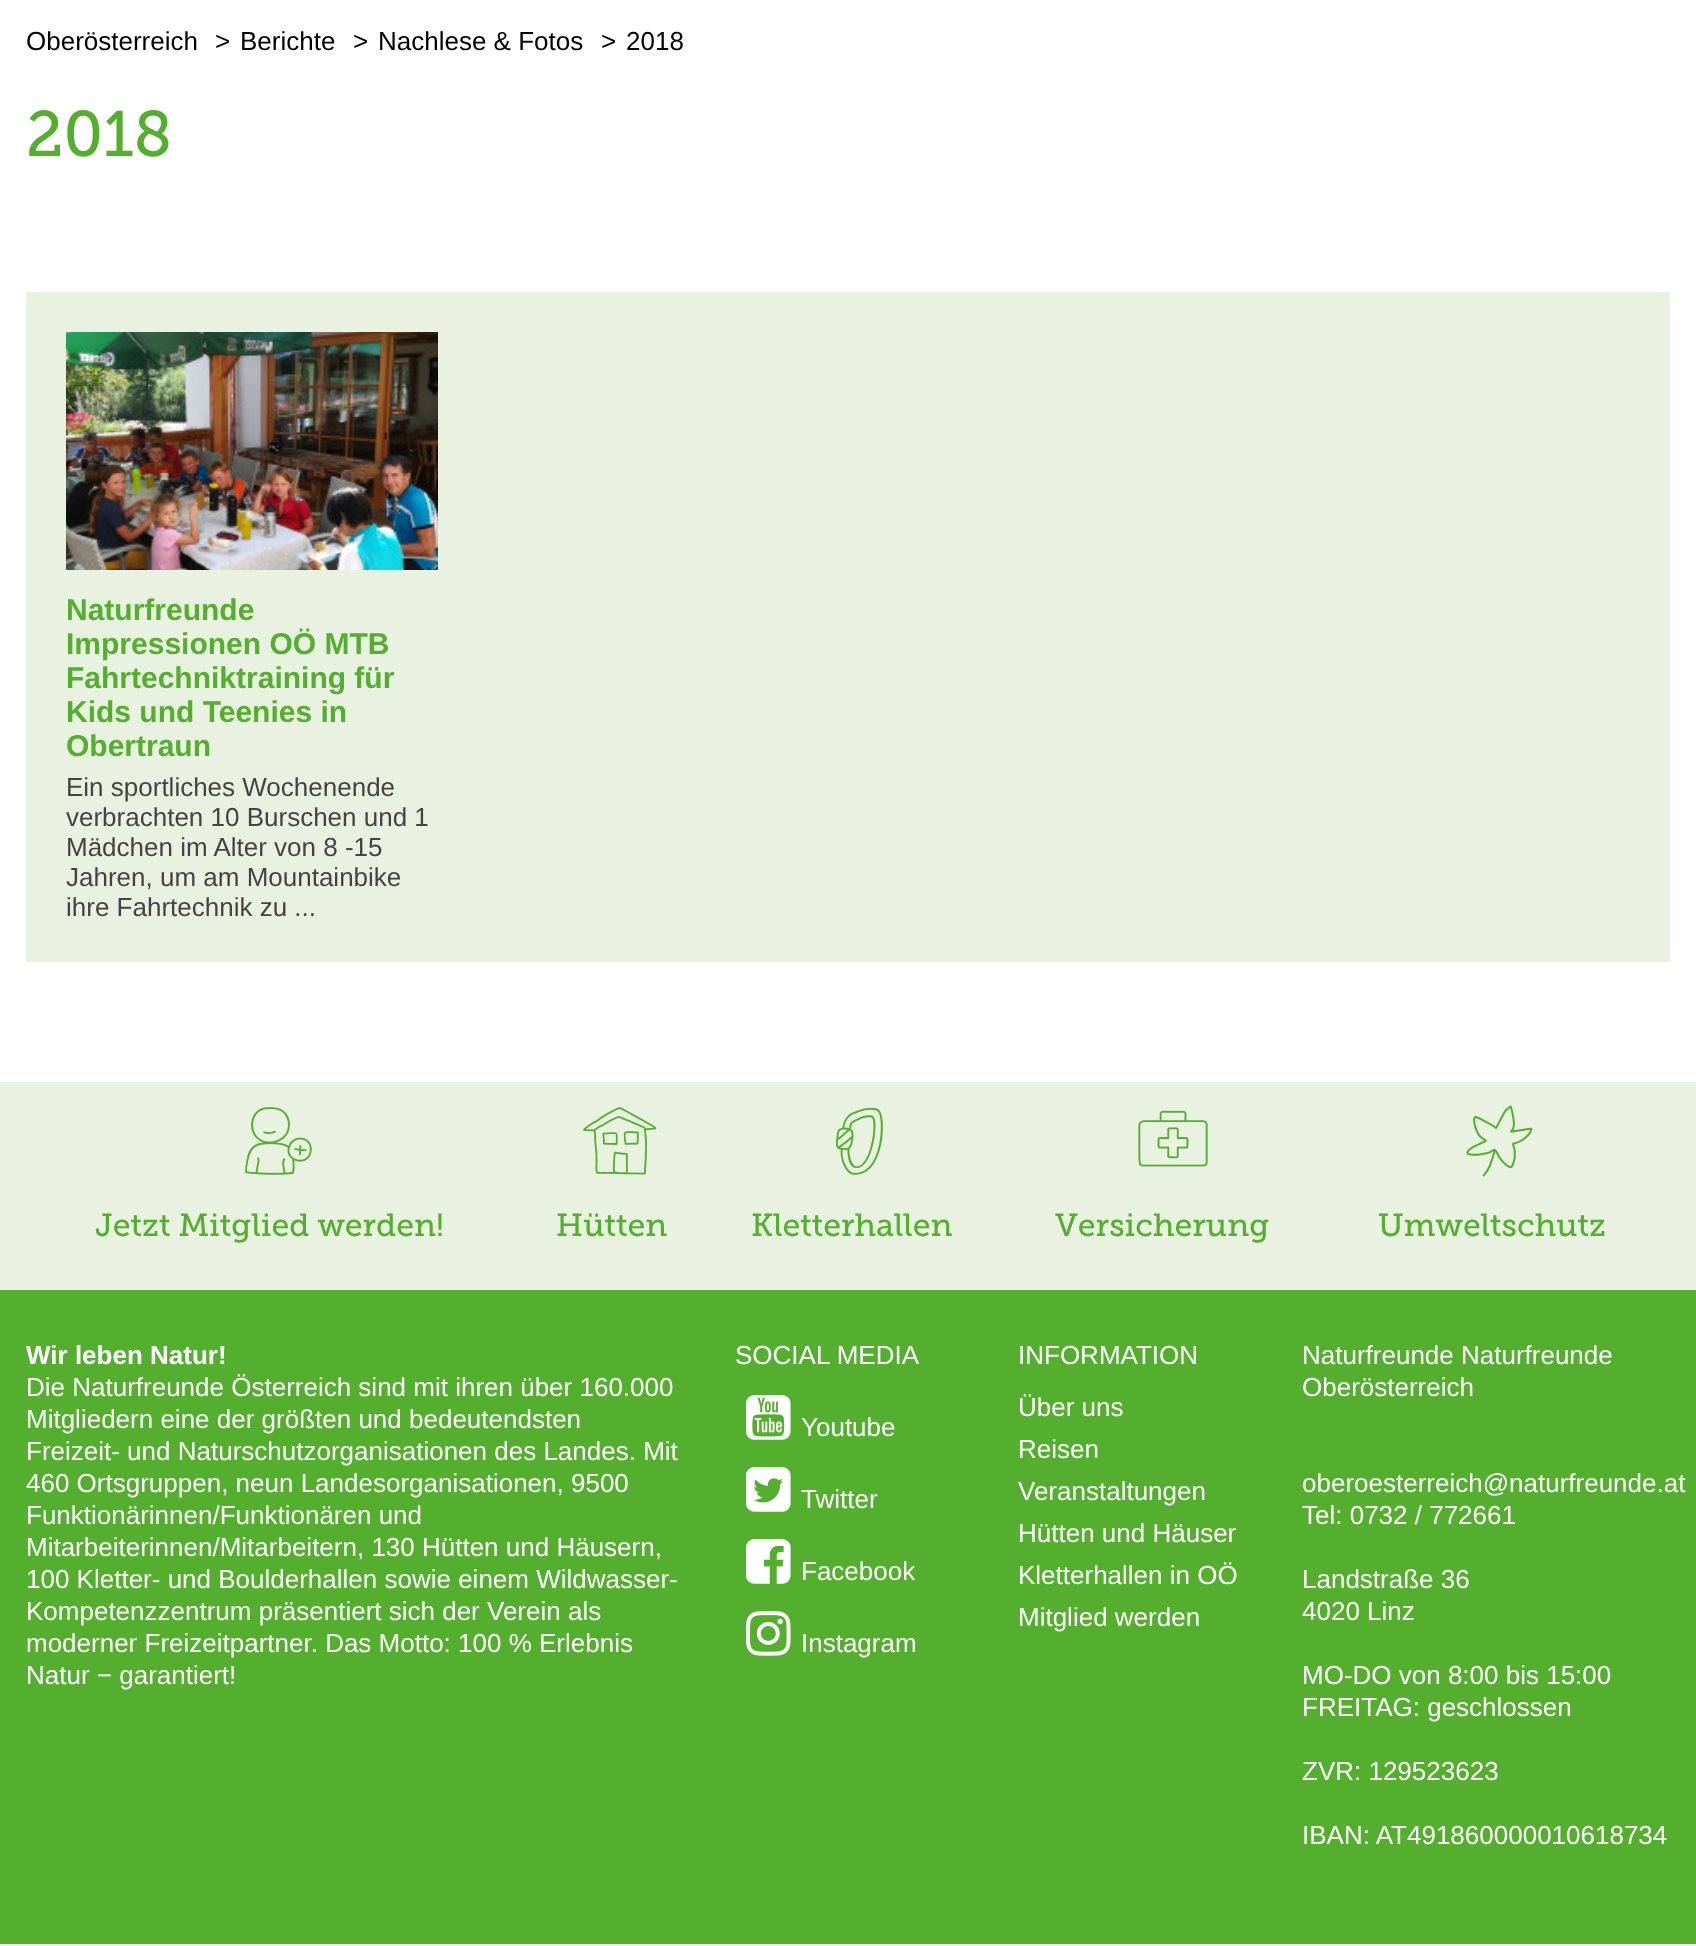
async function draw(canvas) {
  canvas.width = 1696;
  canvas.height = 1946;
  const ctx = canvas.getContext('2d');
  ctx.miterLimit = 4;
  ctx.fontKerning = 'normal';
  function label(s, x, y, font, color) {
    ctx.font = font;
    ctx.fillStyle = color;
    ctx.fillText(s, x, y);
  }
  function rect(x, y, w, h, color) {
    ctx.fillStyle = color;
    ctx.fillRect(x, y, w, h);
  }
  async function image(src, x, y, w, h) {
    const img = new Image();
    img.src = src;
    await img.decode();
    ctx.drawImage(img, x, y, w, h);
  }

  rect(0, 0, 1696, 1946, '#fff');
  label('Oberösterreich', 26, 50, '26px Liberation Sans', '#000');
  label('>', 215, 50, '26px Liberation Sans', '#000');
  label('Berichte', 240, 50, '26px Liberation Sans', '#000');
  label('>', 353, 50, '26px Liberation Sans', '#000');
  label('Nachlese & Fotos', 378, 50, '26px Liberation Sans', '#000');
  label('>', 601, 50, '26px Liberation Sans', '#000');
  label('2018', 626, 50, '26px Liberation Sans', '#000');
  label('2018', 26, 156, '64px "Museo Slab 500"', '#54af2e');
  rect(26, 292, 1644, 670, '#e9f2e1');
  await image('assets/img1.png', 66, 332, 372, 238);
  label('Naturfreunde', 66, 620, 'bold 30px Liberation Sans', '#54af2e');
  label('Impressionen OÖ MTB', 66, 654, 'bold 30px Liberation Sans', '#54af2e');
  label('Fahrtechniktraining für', 66, 688, 'bold 30px Liberation Sans', '#54af2e');
  label('Kids und Teenies in', 66, 722, 'bold 30px Liberation Sans', '#54af2e');
  label('Obertraun', 66, 756, 'bold 30px Liberation Sans', '#54af2e');
  label('Ein sportliches Wochenende', 66, 796, '26px Liberation Sans', '#444');
  label('verbrachten 10 Burschen und 1', 66, 826, '26px Liberation Sans', '#444');
  label('Mädchen im Alter von 8 -15', 66, 856, '26px Liberation Sans', '#444');
  label('Jahren, um am Mountainbike', 66, 886, '26px Liberation Sans', '#444');
  label('ihre Fahrtechnik zu ...', 66, 916, '26px Liberation Sans', '#444');
  rect(0, 1082, 1696, 208, '#e9f2e1');
  await image('assets/img2.png', 245, 1107, 67, 68);
  label('Jetzt Mitglied werden!', 95, 1236, '32px "Museo Slab 500"', '#54af2e');
  await image('assets/img3.png', 583, 1107, 74, 68);
  label('Hütten', 556, 1236, '32px "Museo Slab 500"', '#54af2e');
  await image('assets/img4.png', 835, 1107, 48, 68);
  label('Kletterhallen', 751, 1236, '32px "Museo Slab 500"', '#54af2e');
  await image('assets/img5.png', 1138, 1110, 70, 57);
  label('Versicherung', 1055, 1236, '32px "Museo Slab 500"', '#54af2e');
  await image('assets/img6.png', 1466, 1105, 67, 72);
  label('Umweltschutz', 1378, 1236, '32px "Museo Slab 500"', '#54af2e');
  rect(0, 1290, 1696, 654, '#54af2e');
  label('Wir leben Natur!', 26, 1364, 'bold 26px Liberation Sans', '#fff');
  label('Die Naturfreunde Österreich sind mit ihren über 160.000', 26, 1396, '26px Liberation Sans', '#fff');
  label('Mitgliedern eine der größten und bedeutendsten', 26, 1428, '26px Liberation Sans', '#fff');
  label('Freizeit- und Naturschutzorganisationen des Landes. Mit', 26, 1460, '26px Liberation Sans', '#fff');
  label('460 Ortsgruppen, neun Landesorganisationen, 9500', 26, 1492, '26px Liberation Sans', '#fff');
  label('Funktionärinnen/Funktionären und', 26, 1524, '26px Liberation Sans', '#fff');
  label('Mitarbeiterinnen/Mitarbeitern, 130 Hütten und Häusern,', 26, 1556, '26px Liberation Sans', '#fff');
  label('100 Kletter- und Boulderhallen sowie einem Wildwasser-', 26, 1588, '26px Liberation Sans', '#fff');
  label('Kompetenzzentrum präsentiert sich der Verein als', 26, 1620, '26px Liberation Sans', '#fff');
  label('moderner Freizeitpartner. Das Motto: 100 % Erlebnis', 26, 1652, '26px Liberation Sans', '#fff');
  label('Natur − garantiert!', 26, 1684, '26px Liberation Sans', '#fff');
  label('SOCIAL MEDIA', 735, 1364, '26px Liberation Sans', '#fff');
  await image('assets/img7.png', 746, 1395, 45, 45);
  label('Youtube', 801, 1436, '26px Liberation Sans', '#fff');
  await image('assets/img8.png', 746, 1467, 45, 45);
  label('Twitter', 801, 1508, '26px Liberation Sans', '#fff');
  await image('assets/img9.png', 746, 1539, 45, 45);
  label('Facebook', 801, 1580, '26px Liberation Sans', '#fff');
  await image('assets/img10.png', 746, 1611, 45, 45);
  label('Instagram', 801, 1652, '26px Liberation Sans', '#fff');
  label('INFORMATION', 1018, 1364, '26px Liberation Sans', '#fff');
  label('Über uns', 1018, 1416, '26px Liberation Sans', '#fff');
  label('Reisen', 1018, 1458, '26px Liberation Sans', '#fff');
  label('Veranstaltungen', 1018, 1500, '26px Liberation Sans', '#fff');
  label('Hütten und Häuser', 1018, 1542, '26px Liberation Sans', '#fff');
  label('Kletterhallen in OÖ', 1018, 1584, '26px Liberation Sans', '#fff');
  label('Mitglied werden', 1018, 1626, '26px Liberation Sans', '#fff');
  label('Naturfreunde Naturfreunde', 1302, 1364, '26px Liberation Sans', '#fff');
  label('Oberösterreich', 1302, 1396, '26px Liberation Sans', '#fff');
  label('oberoesterreich@naturfreunde.at', 1302, 1492, '26px Liberation Sans', '#fff');
  label('Tel: 0732 / 772661', 1302, 1524, '26px Liberation Sans', '#fff');
  label('Landstraße 36', 1302, 1588, '26px Liberation Sans', '#fff');
  label('4020 Linz', 1302, 1620, '26px Liberation Sans', '#fff');
  label('MO-DO von 8:00 bis 15:00', 1302, 1684, '26px Liberation Sans', '#fff');
  label('FREITAG: geschlossen', 1302, 1716, '26px Liberation Sans', '#fff');
  label('ZVR: 129523623', 1302, 1780, '26px Liberation Sans', '#fff');
  label('IBAN: AT491860000010618734', 1302, 1844, '26px Liberation Sans', '#fff');
}

draw(document.querySelector('canvas'));
